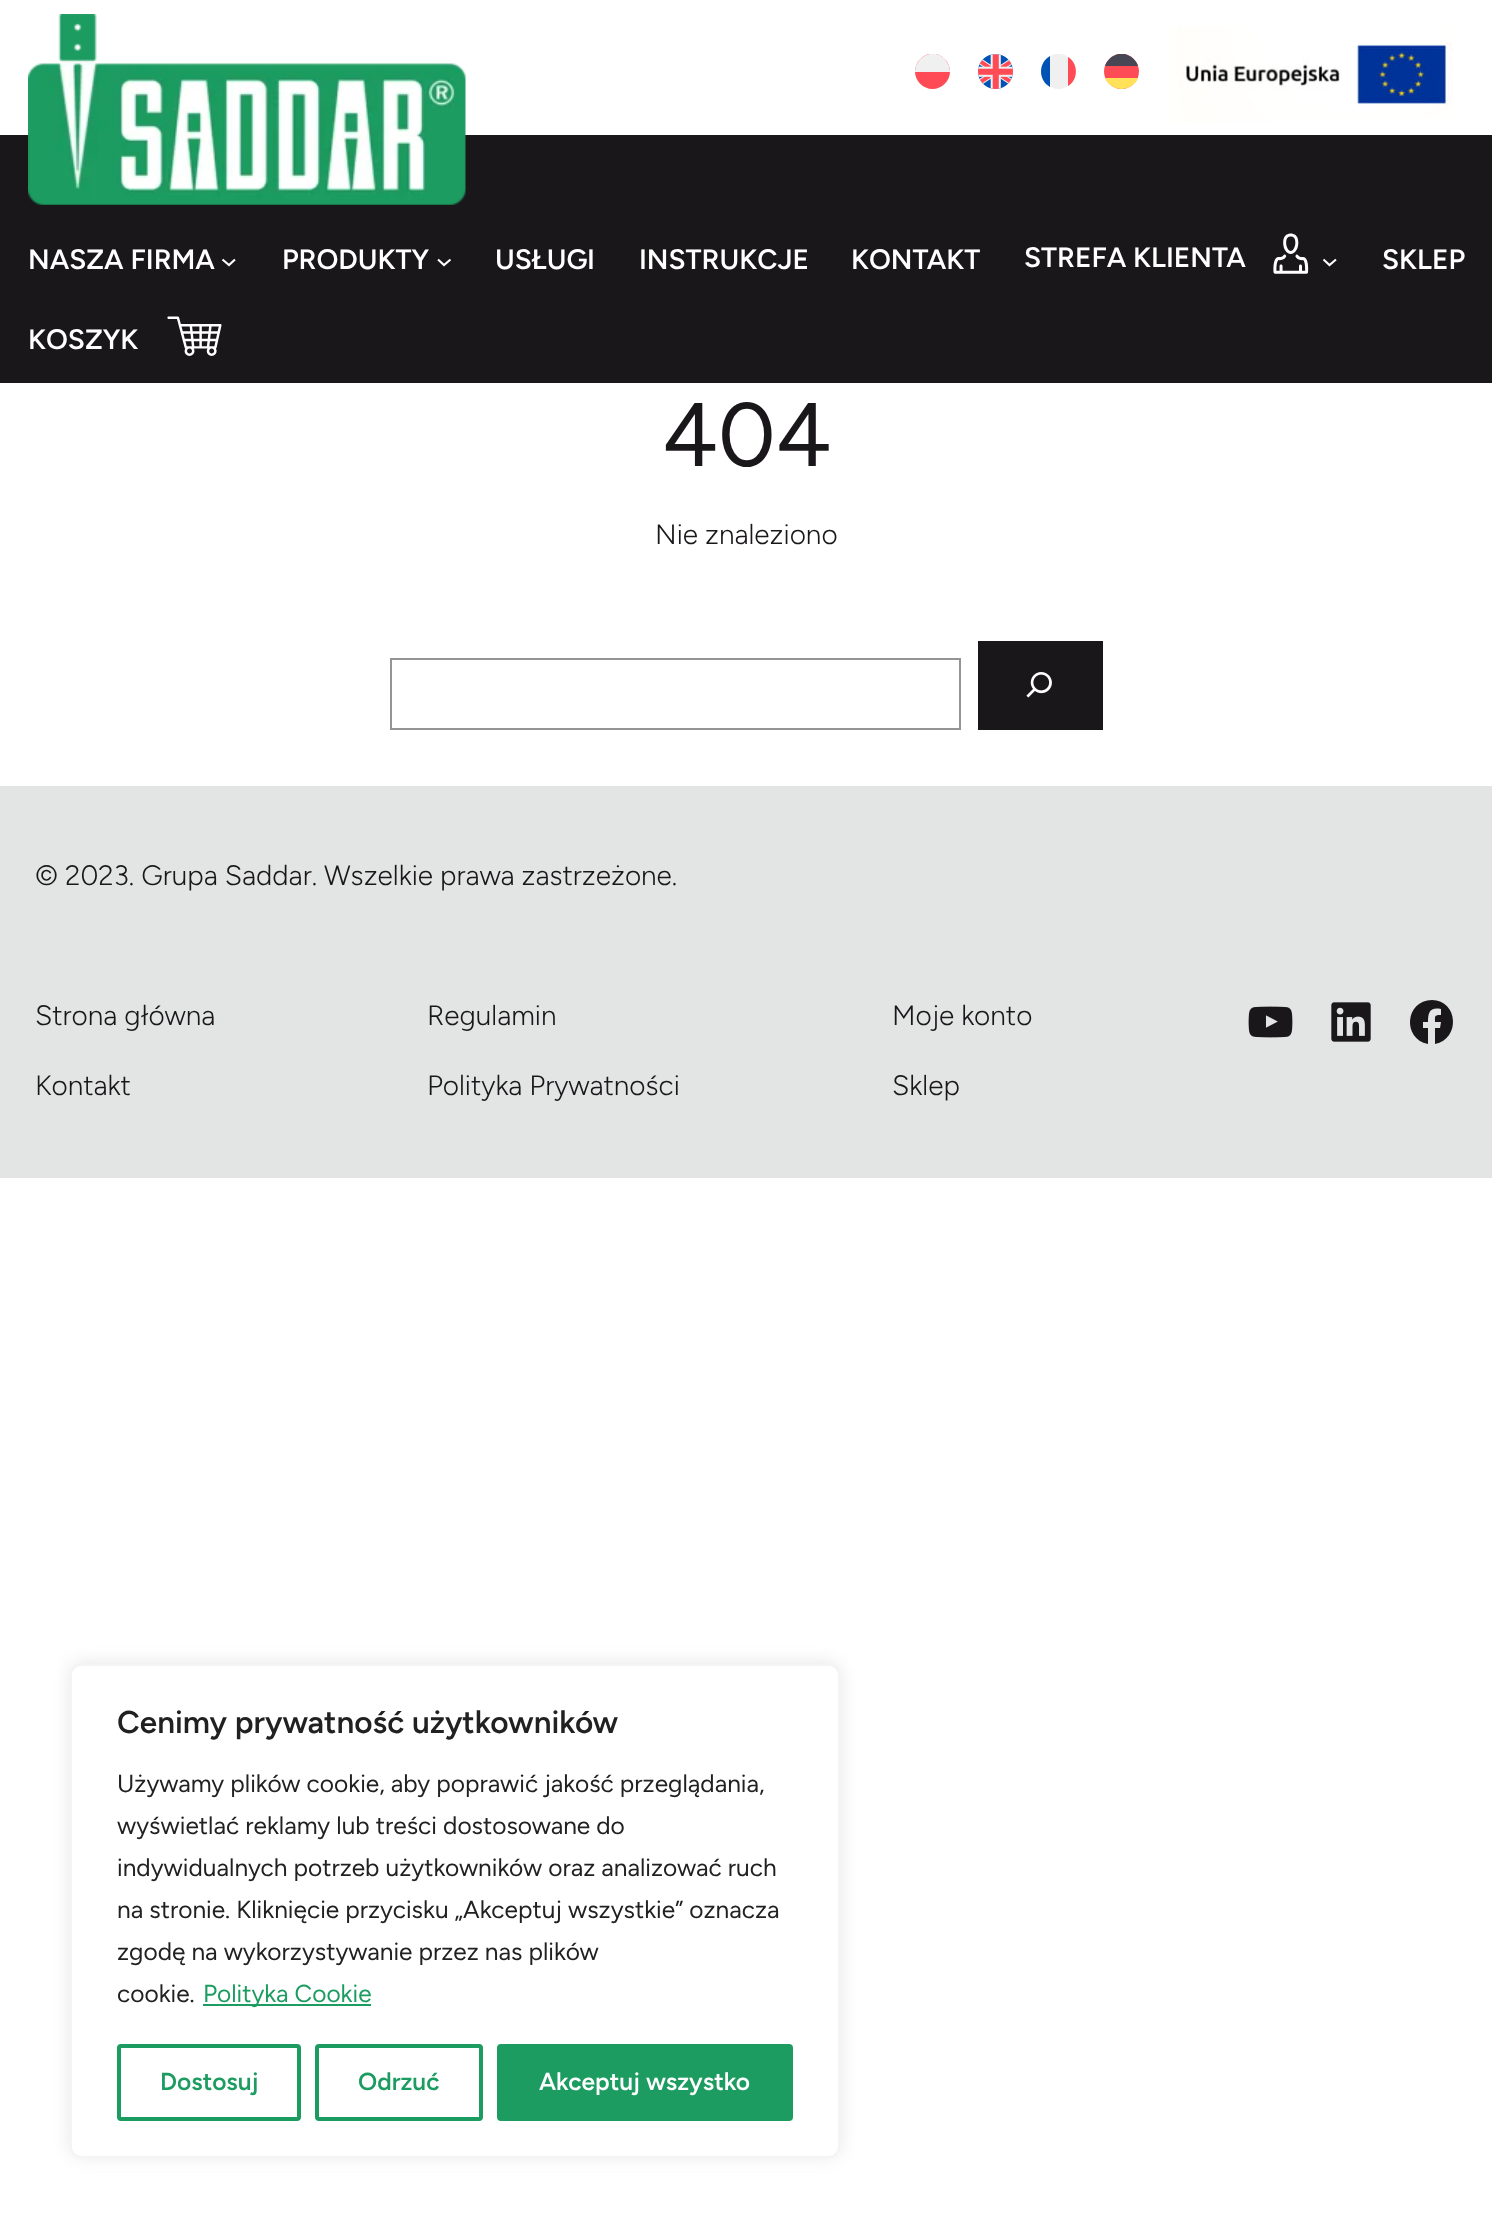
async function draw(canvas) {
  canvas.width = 1492;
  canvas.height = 2227;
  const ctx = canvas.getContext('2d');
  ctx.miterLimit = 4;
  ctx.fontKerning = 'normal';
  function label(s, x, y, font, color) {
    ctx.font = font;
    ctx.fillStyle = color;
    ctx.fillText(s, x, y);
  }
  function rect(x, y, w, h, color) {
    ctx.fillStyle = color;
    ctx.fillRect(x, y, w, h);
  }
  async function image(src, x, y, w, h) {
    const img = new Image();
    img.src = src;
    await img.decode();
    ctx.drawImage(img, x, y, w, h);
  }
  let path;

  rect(0, 0, 1492, 2227, '#fff');
  rect(0, 135, 1492, 248, '#1a171b');
  await image('assets/img1.png', 28, 14, 438, 191);
  ctx.fillStyle = '#ff4b55';
  path = new Path2D('M935.5 54C943.5 55.5 950 63 950 71.5C950 81 942 89 932.5 89C923 89 915 81 915 71.5C915 63 921.5 55.5 929.5 54Z');
  ctx.fill(path);
  ctx.fillStyle = '#f0f0f0';
  path = new Path2D('M935.5 54C944 55.5 950 63.5 950 72H915C915 63 921 56 929.5 54Z');
  ctx.fill(path);
  await image('assets/img2.png', 978, 54, 35, 35);
  path = new Path2D('M1061.5 54C1069.5 55.5 1076 63 1076 71.5C1076 81 1068 89 1058.5 89C1049 89 1041 81 1041 71.5C1041 63 1047.5 55.5 1055.5 54Z');
  ctx.fill(path);
  ctx.fillStyle = '#ff4b55';
  path = new Path2D('M1068 57V86C1078.5 79.5 1078.5 63.5 1068 57Z');
  ctx.fill(path);
  ctx.fillStyle = '#0052b4';
  path = new Path2D('M1050 56C1038 63 1038 80 1050 87Z');
  ctx.fill(path);
  ctx.fillStyle = '#ff4b55';
  path = new Path2D('M1124.5 54C1132.5 55.5 1139 63 1139 71.5C1139 81 1131 89 1121.5 89C1112 89 1104 81 1104 71.5C1104 63 1110.5 55.5 1118.5 54Z');
  ctx.fill(path);
  ctx.fillStyle = '#ffe15a';
  path = new Path2D('M1138 78H1105C1111 92.5 1132 92.5 1138 78Z');
  ctx.fill(path);
  ctx.fillStyle = '#464655';
  path = new Path2D('M1124.5 54C1131 55.5 1136 60 1138 66H1105C1107 60 1112 55.5 1118.5 54Z');
  ctx.fill(path);
  await image('assets/img3.png', 1168, 26, 285, 96);
  label('NASZA FIRMA', 28, 269, '600 28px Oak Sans', '#fff');
  path = new Path2D('M222.5 259.5L229 265L235 259.5');
  ctx.strokeStyle = '#fff';
  ctx.lineWidth = 2.1;
  ctx.stroke(path);
  label('PRODUKTY', 282, 269, '600 28px Oak Sans', '#fff');
  path = new Path2D('M438 259.5L444 265L450.5 259.5');
  ctx.stroke(path);
  label('USŁUGI', 495, 269, '600 28px Oak Sans', '#fff');
  label('INSTRUKCJE', 639, 269, '600 28px Oak Sans', '#fff');
  label('KONTAKT', 851, 269, '600 28px Oak Sans', '#fff');
  label('STREFA KLIENTA', 1024, 267, '600 28px Oak Sans', '#fff');
  await image('assets/img4.png', 1273, 233, 36, 41);
  path = new Path2D('M1323.5 259.5L1329.5 265L1336 259.5');
  ctx.stroke(path);
  label('SKLEP', 1382, 269, '600 28px Oak Sans', '#fff');
  label('KOSZYK', 28, 349, '600 28px Oak Sans', '#fff');
  await image('assets/img5.png', 167, 316, 55, 40);
  label('404', 662, 466, '90px Oak Sans', '#1a171b');
  label('Nie znaleziono', 655, 544, '300 28px Oak Sans', '#1a171b');
  ctx.strokeStyle = '#949494';
  ctx.lineWidth = 2;
  ctx.strokeRect(391, 659, 569, 70);
  rect(978, 641, 125, 89, '#1a171b');
  await image('assets/img6.png', 1026, 672, 26, 26);
  rect(0, 786, 1492, 392, '#e3e4e4');
  label('© 2023. Grupa Saddar. Wszelkie prawa zastrzeżone.', 35, 885, '300 28px Oak Sans', '#1a171b');
  label('Strona główna', 35, 1025, '300 28px Oak Sans', '#1a171b');
  label('Kontakt', 35, 1095, '300 28px Oak Sans', '#1a171b');
  label('Regulamin', 427, 1025, '300 28px Oak Sans', '#1a171b');
  label('Polityka Prywatności', 427, 1095, '300 28px Oak Sans', '#1a171b');
  label('Moje konto', 892, 1025, '300 28px Oak Sans', '#1a171b');
  label('Sklep', 892, 1095, '300 28px Oak Sans', '#1a171b');
  await image('assets/img7.png', 1248, 1006, 45, 32);
  await image('assets/img8.png', 1331, 1002, 40, 40);
  path = new Path2D('M1432 1000C1405 1000 1402 1039 1428 1044V1028H1423V1022H1428C1428 1012 1430 1007 1441 1009V1015C1434 1015 1435 1016 1435 1022H1441L1440 1028H1435V1044C1461 1039 1458 1000 1432 1000Z');
  ctx.fill(path);
  ctx.fillStyle = '#acabab4d';
  ctx.filter = 'blur(9px)';
  ctx.beginPath();
  ctx.roundRect(70, 1663, 770, 493, 11);
  ctx.fill();
  ctx.filter = 'none';
  ctx.fillStyle = '#fff';
  ctx.beginPath();
  ctx.roundRect(71, 1665, 768, 492, 10);
  ctx.fill();
  ctx.strokeStyle = '#f4f4f4';
  ctx.stroke();
  label('Cenimy prywatność użytkowników', 117, 1733, '600 31.5px Oak Sans', '#212121');
  label('Używamy plików cookie, aby poprawić jakość przeglądania,', 117, 1792, '24.5px Oak Sans', '#212121');
  label('wyświetlać reklamy lub treści dostosowane do', 117, 1834, '24.5px Oak Sans', '#212121');
  label('indywidualnych potrzeb użytkowników oraz analizować ruch', 117, 1876, '24.5px Oak Sans', '#212121');
  label('na stronie. Kliknięcie przycisku „Akceptuj wszystkie” oznacza', 117, 1918, '24.5px Oak Sans', '#212121');
  label('zgodę na wykorzystywanie przez nas plików', 117, 1960, '24.5px Oak Sans', '#212121');
  label('cookie.', 117, 2002, '24.5px Oak Sans', '#212121');
  rect(203, 2004, 168, 2, '#1c9c60');
  label('Polityka Cookie', 203, 2002, '24.5px Oak Sans', '#1c9c60');
  ctx.beginPath();
  ctx.roundRect(119, 2046, 180, 73, 2);
  ctx.strokeStyle = '#1c9c60';
  ctx.lineWidth = 4;
  ctx.stroke();
  label('Dostosuj', 160, 2090, '600 24.5px Oak Sans', '#1c9c60');
  ctx.beginPath();
  ctx.roundRect(317, 2046, 164, 73, 2);
  ctx.stroke();
  label('Odrzuć', 358, 2090, '600 24.5px Oak Sans', '#1c9c60');
  ctx.beginPath();
  ctx.roundRect(499, 2046, 292, 73, 2);
  ctx.fill();
  ctx.stroke();
  label('Akceptuj wszystko', 539, 2090, '600 24.5px Oak Sans', '#fff');
}

draw(document.querySelector('canvas'));
